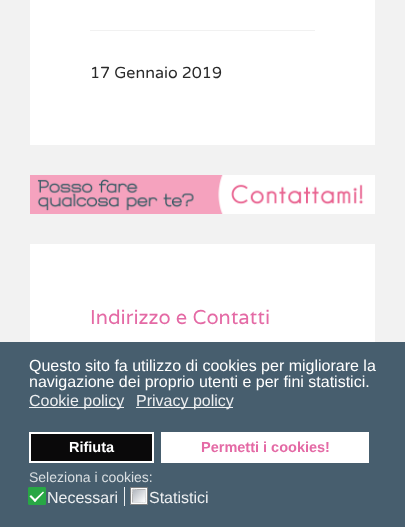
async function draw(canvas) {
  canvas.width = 405;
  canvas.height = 527;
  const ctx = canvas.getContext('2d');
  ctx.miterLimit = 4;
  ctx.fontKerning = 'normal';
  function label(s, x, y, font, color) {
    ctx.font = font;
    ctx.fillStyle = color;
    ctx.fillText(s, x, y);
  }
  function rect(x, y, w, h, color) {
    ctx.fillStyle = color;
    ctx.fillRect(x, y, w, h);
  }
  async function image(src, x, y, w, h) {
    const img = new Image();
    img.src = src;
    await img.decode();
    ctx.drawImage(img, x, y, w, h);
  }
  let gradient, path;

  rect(0, 0, 405, 527, '#f2f2f2');
  rect(30, 0, 345, 145, '#fff');
  rect(90, 30, 225, 1, '#f1f1f1');
  label('17 Gennaio 2019', 90, 78, '16px Varela Round', '#2a2a2a');
  await image('assets/img1.png', 30, 175, 345, 39);
  rect(30, 244, 345, 98, '#fff');
  label('Indirizzo e Contatti', 90, 324, '20px Varela', '#e46aa5');
  rect(0, 342, 405, 185, '#475e6e');
  label('Questo sito fa utilizzo di cookies per migliorare la', 29, 371, '16px Liberation Sans', '#fff');
  label('navigazione dei proprio utenti e per fini statistici.', 29, 387, '16px Liberation Sans', '#fff');
  rect(29, 407, 95, 1, '#edeff1');
  label('Cookie policy', 29, 406, '16px Liberation Sans', '#edeff1');
  rect(136, 407, 97, 1, '#edeff1');
  label('Privacy policy', 136, 406, '16px Liberation Sans', '#edeff1');
  ctx.fillStyle = '#0a090a';
  ctx.beginPath();
  ctx.rect(30, 433, 123, 29);
  ctx.fill();
  ctx.strokeStyle = '#fff';
  ctx.lineWidth = 2;
  ctx.stroke();
  label('Rifiuta', 69, 452, 'bold 14.5px Liberation Sans', '#fff');
  rect(161, 432, 208, 31, '#fff');
  label('Permetti i cookies!', 201, 452, 'bold 14.5px Liberation Sans', '#e46aa5');
  label('Seleziona i cookies:', 29, 482, '14px Liberation Sans', '#dadfe2');
  ctx.fillStyle = '#28a745';
  ctx.beginPath();
  ctx.roundRect(28.5, 487.5, 17, 17, 0.5);
  ctx.fill();
  ctx.strokeStyle = '#28a745';
  ctx.lineWidth = 1;
  ctx.stroke();
  ctx.fillStyle = '#fff';
  path = new Path2D('M43 491.5L44 492.5L35 502L33.5 500.5Z');
  ctx.fill(path);
  path = new Path2D('M31 495L36.5 500.5L35 502L29.5 496.5Z');
  ctx.fill(path);
  rect(124, 487, 1, 19, '#edeff1');
  label('Necessari', 47, 503, '16px Liberation Sans', '#edeff1');
  ctx.fillStyle = '#fff';
  ctx.beginPath();
  ctx.roundRect(130.5, 487.5, 17, 17, 0.5);
  ctx.fill();
  ctx.strokeStyle = '#808080';
  ctx.stroke();
  gradient = ctx.createLinearGradient(133, 490, 145, 502);
  gradient.addColorStop(0, '#b1b6be');
  gradient.addColorStop(1, '#fff');
  ctx.fillStyle = gradient;
  ctx.fillRect(133, 490, 12, 12);
  path = new Path2D('M145.5 489.5V496C145.5 504.5 147.5 502.5 139 502.5H132.5');
  ctx.strokeStyle = '#dcddde';
  ctx.stroke(path);
  path = new Path2D('M132.5 502.5V496C132.5 487.5 130.5 489.5 139 489.5H145.5');
  ctx.strokeStyle = '#b3b3b3';
  ctx.stroke(path);
  label('Statistici', 149, 503, '16px Liberation Sans', '#edeff1');
}

draw(document.querySelector('canvas'));
